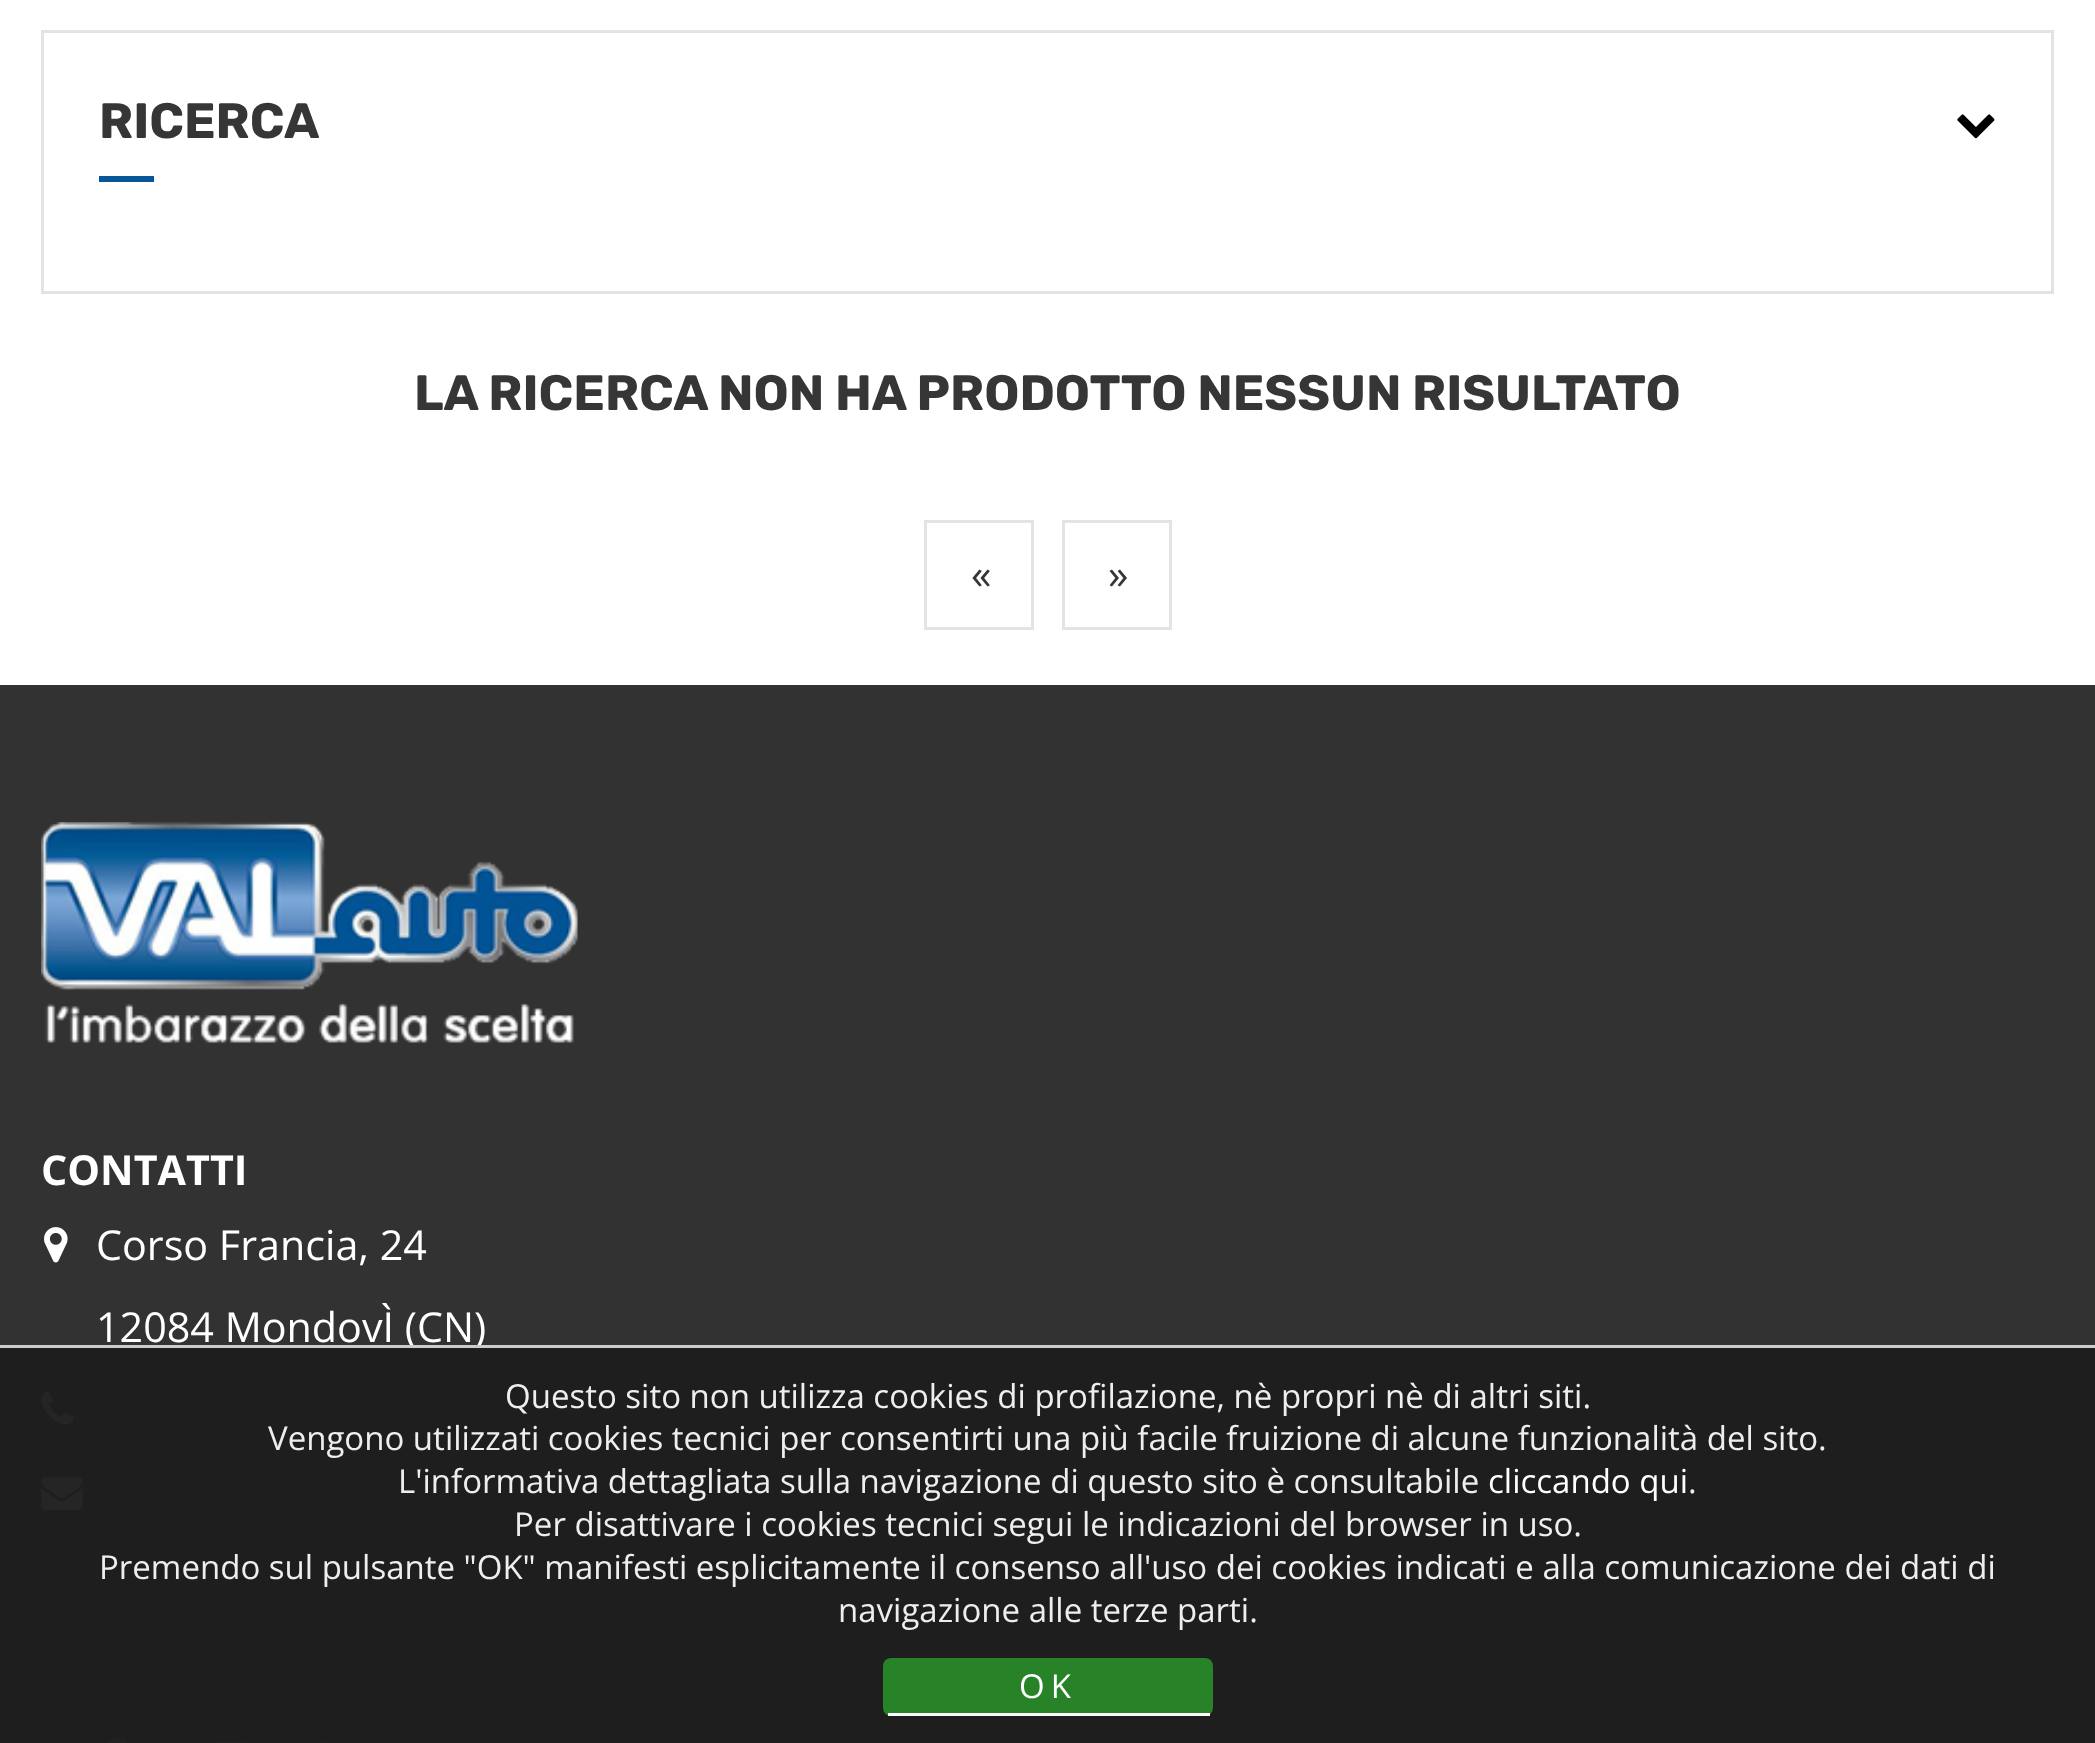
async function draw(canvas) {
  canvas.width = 2095;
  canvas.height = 1743;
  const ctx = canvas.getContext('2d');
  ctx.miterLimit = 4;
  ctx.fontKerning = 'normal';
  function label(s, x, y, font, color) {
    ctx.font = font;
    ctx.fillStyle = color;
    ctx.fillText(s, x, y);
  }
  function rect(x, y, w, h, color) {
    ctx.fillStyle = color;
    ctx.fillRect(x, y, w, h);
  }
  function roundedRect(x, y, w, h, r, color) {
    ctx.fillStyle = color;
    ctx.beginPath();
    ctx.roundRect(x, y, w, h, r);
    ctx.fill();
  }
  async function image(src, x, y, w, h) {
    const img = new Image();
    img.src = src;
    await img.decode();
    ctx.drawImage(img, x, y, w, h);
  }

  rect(0, 0, 2095, 1743, '#fff');
  ctx.strokeStyle = '#e3e3e3';
  ctx.lineWidth = 3;
  ctx.strokeRect(42.5, 31.5, 2010, 261);
  label('RICERCA', 99, 138, 'bold 49.5px Rubik', '#363636');
  rect(99, 176, 55, 6, '#075698');
  await image('assets/img1.png', 1957, 114, 38, 25);
  label('LA RICERCA NON HA PRODOTTO NESSUN RISULTATO', 414, 410, 'bold 49.5px Rubik', '#363636');
  ctx.strokeRect(925.5, 521.5, 107, 107);
  label('«', 971, 589, '41.25px Open Sans', '#363636');
  ctx.strokeRect(1063.5, 521.5, 107, 107);
  label('»', 1108, 589, '41.25px Open Sans', '#363636');
  rect(0, 685, 2095, 1058, '#323232');
  await image('assets/img2.png', 41, 822, 537, 221);
  label('CONTATTI', 41, 1185, 'bold 41.25px Open Sans', '#fff');
  await image('assets/img3.png', 44, 1227, 24, 36);
  label('Corso Francia, 24', 96, 1260, '41.25px Open Sans', '#fff');
  label('12084 MondovÌ (CN)', 96, 1342, '41.25px Open Sans', '#fff');
  await image('assets/img4.png', 41, 1392, 33, 33);
  await image('assets/img5.png', 41, 1477, 42, 33);
  await image('assets/img6.png', 108, 1737, 18, 6);
  await image('assets/img7.png', 214, 1741, 32, 2);
  await image('assets/img8.png', 319, 1742, 6, 1);
  rect(0, 1348, 2095, 395, '#1e1e1ef7');
  rect(0, 1345, 2095, 3, '#ccc');
  label('Questo sito non utilizza cookies di profilazione, nè propri nè di altri siti.', 505, 1408, '33px Open Sans', '#eee');
  label('Vengono utilizzati cookies tecnici per consentirti una più facile fruizione di alcune funzionalità del sito.', 268, 1450, '33px Open Sans', '#eee');
  label('L\'informativa dettagliata sulla navigazione di questo sito è consultabile', 398, 1493, '33px Open Sans', '#eee');
  label('cliccando qui', 1488, 1493, '33px Open Sans', '#fff');
  label('.', 1688, 1493, '33px Open Sans', '#eee');
  label('Per disattivare i cookies tecnici segui le indicazioni del browser in uso.', 514, 1536, '33px Open Sans', '#eee');
  label('Premendo sul pulsante "OK" manifesti esplicitamente il consenso all\'uso dei cookies indicati e alla comunicazione dei dati di', 99, 1579, '33px Open Sans', '#eee');
  label('navigazione alle terze parti.', 838, 1622, '33px Open Sans', '#eee');
  roundedRect(883, 1658, 330, 58, 8, '#288228');
  rect(888, 1713, 322, 3, '#fff');
  ctx.letterSpacing = '6px';
  label('OK', 1019, 1698, '33px Open Sans', '#fff');
}

draw(document.querySelector('canvas'));
